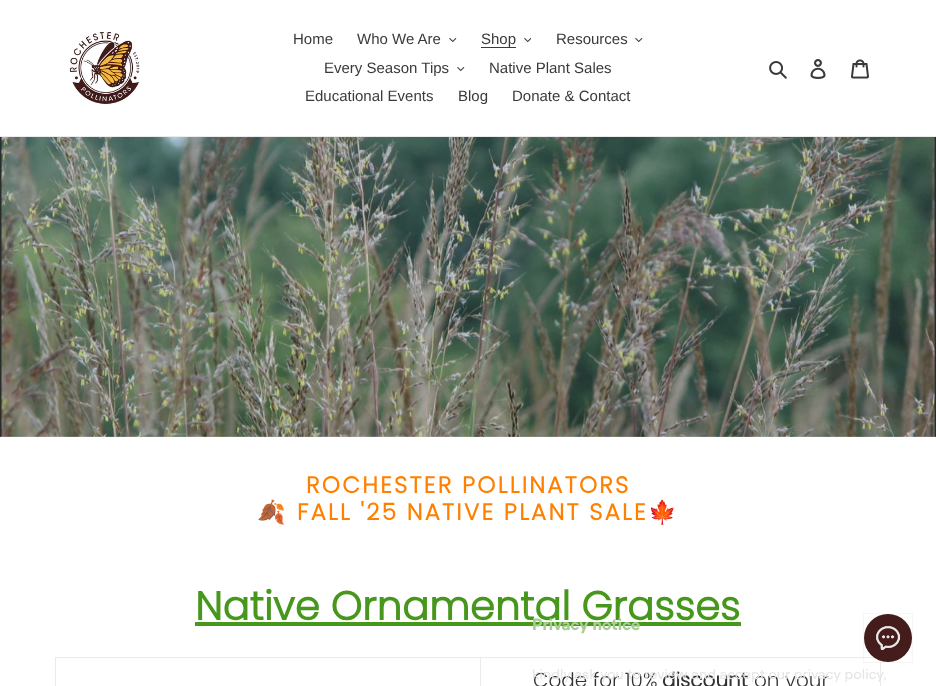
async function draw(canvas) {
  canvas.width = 936;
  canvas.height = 686;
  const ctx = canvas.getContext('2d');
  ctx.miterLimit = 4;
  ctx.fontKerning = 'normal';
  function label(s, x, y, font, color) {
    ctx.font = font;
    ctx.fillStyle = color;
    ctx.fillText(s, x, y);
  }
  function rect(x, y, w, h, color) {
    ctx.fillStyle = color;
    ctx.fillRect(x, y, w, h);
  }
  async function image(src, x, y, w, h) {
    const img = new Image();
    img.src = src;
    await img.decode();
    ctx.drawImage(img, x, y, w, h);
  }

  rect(0, 0, 936, 686, '#fff');
  rect(0, 136, 936, 1, '#ebebeb');
  await image('assets/img1.png', 68, 31, 72, 74);
  label('Home', 293, 44, '15px Liberation Sans', '#3a3a3a');
  label('Who We Are', 357, 44, '15px Liberation Sans', '#3a3a3a');
  await image('assets/img2.png', 449, 38, 8, 4);
  rect(481, 47, 35, 1, '#3a3a3a');
  label('Shop', 481, 44, '15px Liberation Sans', '#3a3a3a');
  await image('assets/img3.png', 524, 38, 7, 4);
  label('Resources', 556, 44, '15px Liberation Sans', '#3a3a3a');
  await image('assets/img2.png', 635, 38, 8, 4);
  label('Every Season Tips', 324, 73, '15px Liberation Sans', '#3a3a3a');
  await image('assets/img2.png', 457, 67, 8, 4);
  label('Native Plant Sales', 489, 73, '15px Liberation Sans', '#3a3a3a');
  label('Educational Events', 305, 101, '15px Liberation Sans', '#3a3a3a');
  label('Blog', 458, 101, '15px Liberation Sans', '#3a3a3a');
  label('Donate & Contact', 512, 101, '15px Liberation Sans', '#3a3a3a');
  await image('assets/img4.png', 769, 61, 18, 18);
  await image('assets/img5.png', 810, 59, 16, 20);
  await image('assets/img6.png', 851, 59, 18, 20);
  await image('assets/img7.png', 0, 137, 936, 300);
  ctx.letterSpacing = '2.3px';
  label('ROCHESTER POLLINATORS', 306, 493, 'bold 23px Poppins', '#ff8000');
  label('🍂', 257, 520, 'bold 23px Noto Color Emoji', '#ff8000');
  label('FALL \'25 NATIVE PLANT SALE', 297, 520, 'bold 23px Poppins', '#ff8000');
  label('🍁', 648, 520, 'bold 23px Noto Color Emoji', '#ff8000');
  ctx.letterSpacing = '0px';
  label('Native Ornamental Grasses', 195, 620, 'bold 40px Poppins', '#47971d');
  rect(195, 622, 546, 4, '#47971d');
  rect(480, 657, 401, 1, '#ebebeb');
  rect(480, 657, 1, 29, '#ebebeb');
  rect(55, 657, 426, 1, '#ebebeb');
  rect(55, 657, 1, 29, '#ebebeb');
  rect(880, 657, 1, 29, '#ebebeb');
  label('Code for 10%', 533, 687, '300 20px Poppins', '#333232');
  label('discount', 662, 687, 'bold 20px Poppins', '#333232');
  label('on your', 754, 687, '300 20px Poppins', '#333232');
  label('Privacy notice', 532, 630, 'bold 16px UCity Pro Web', '#a7cd93');
  label('kindly ask you to review and accept our privacy policy,', 532, 679, '14px UCity Pro Web', '#e5e5e5');
  ctx.strokeStyle = '#161a1e0a';
  ctx.strokeRect(863.5, 613.5, 49, 49);
  ctx.fillStyle = '#441c1c';
  ctx.beginPath();
  ctx.arc(888, 638, 24, 0, 2 * Math.PI);
  ctx.fill();
  await image('assets/img8.png', 876, 626, 25, 25);
}

draw(document.querySelector('canvas'));
